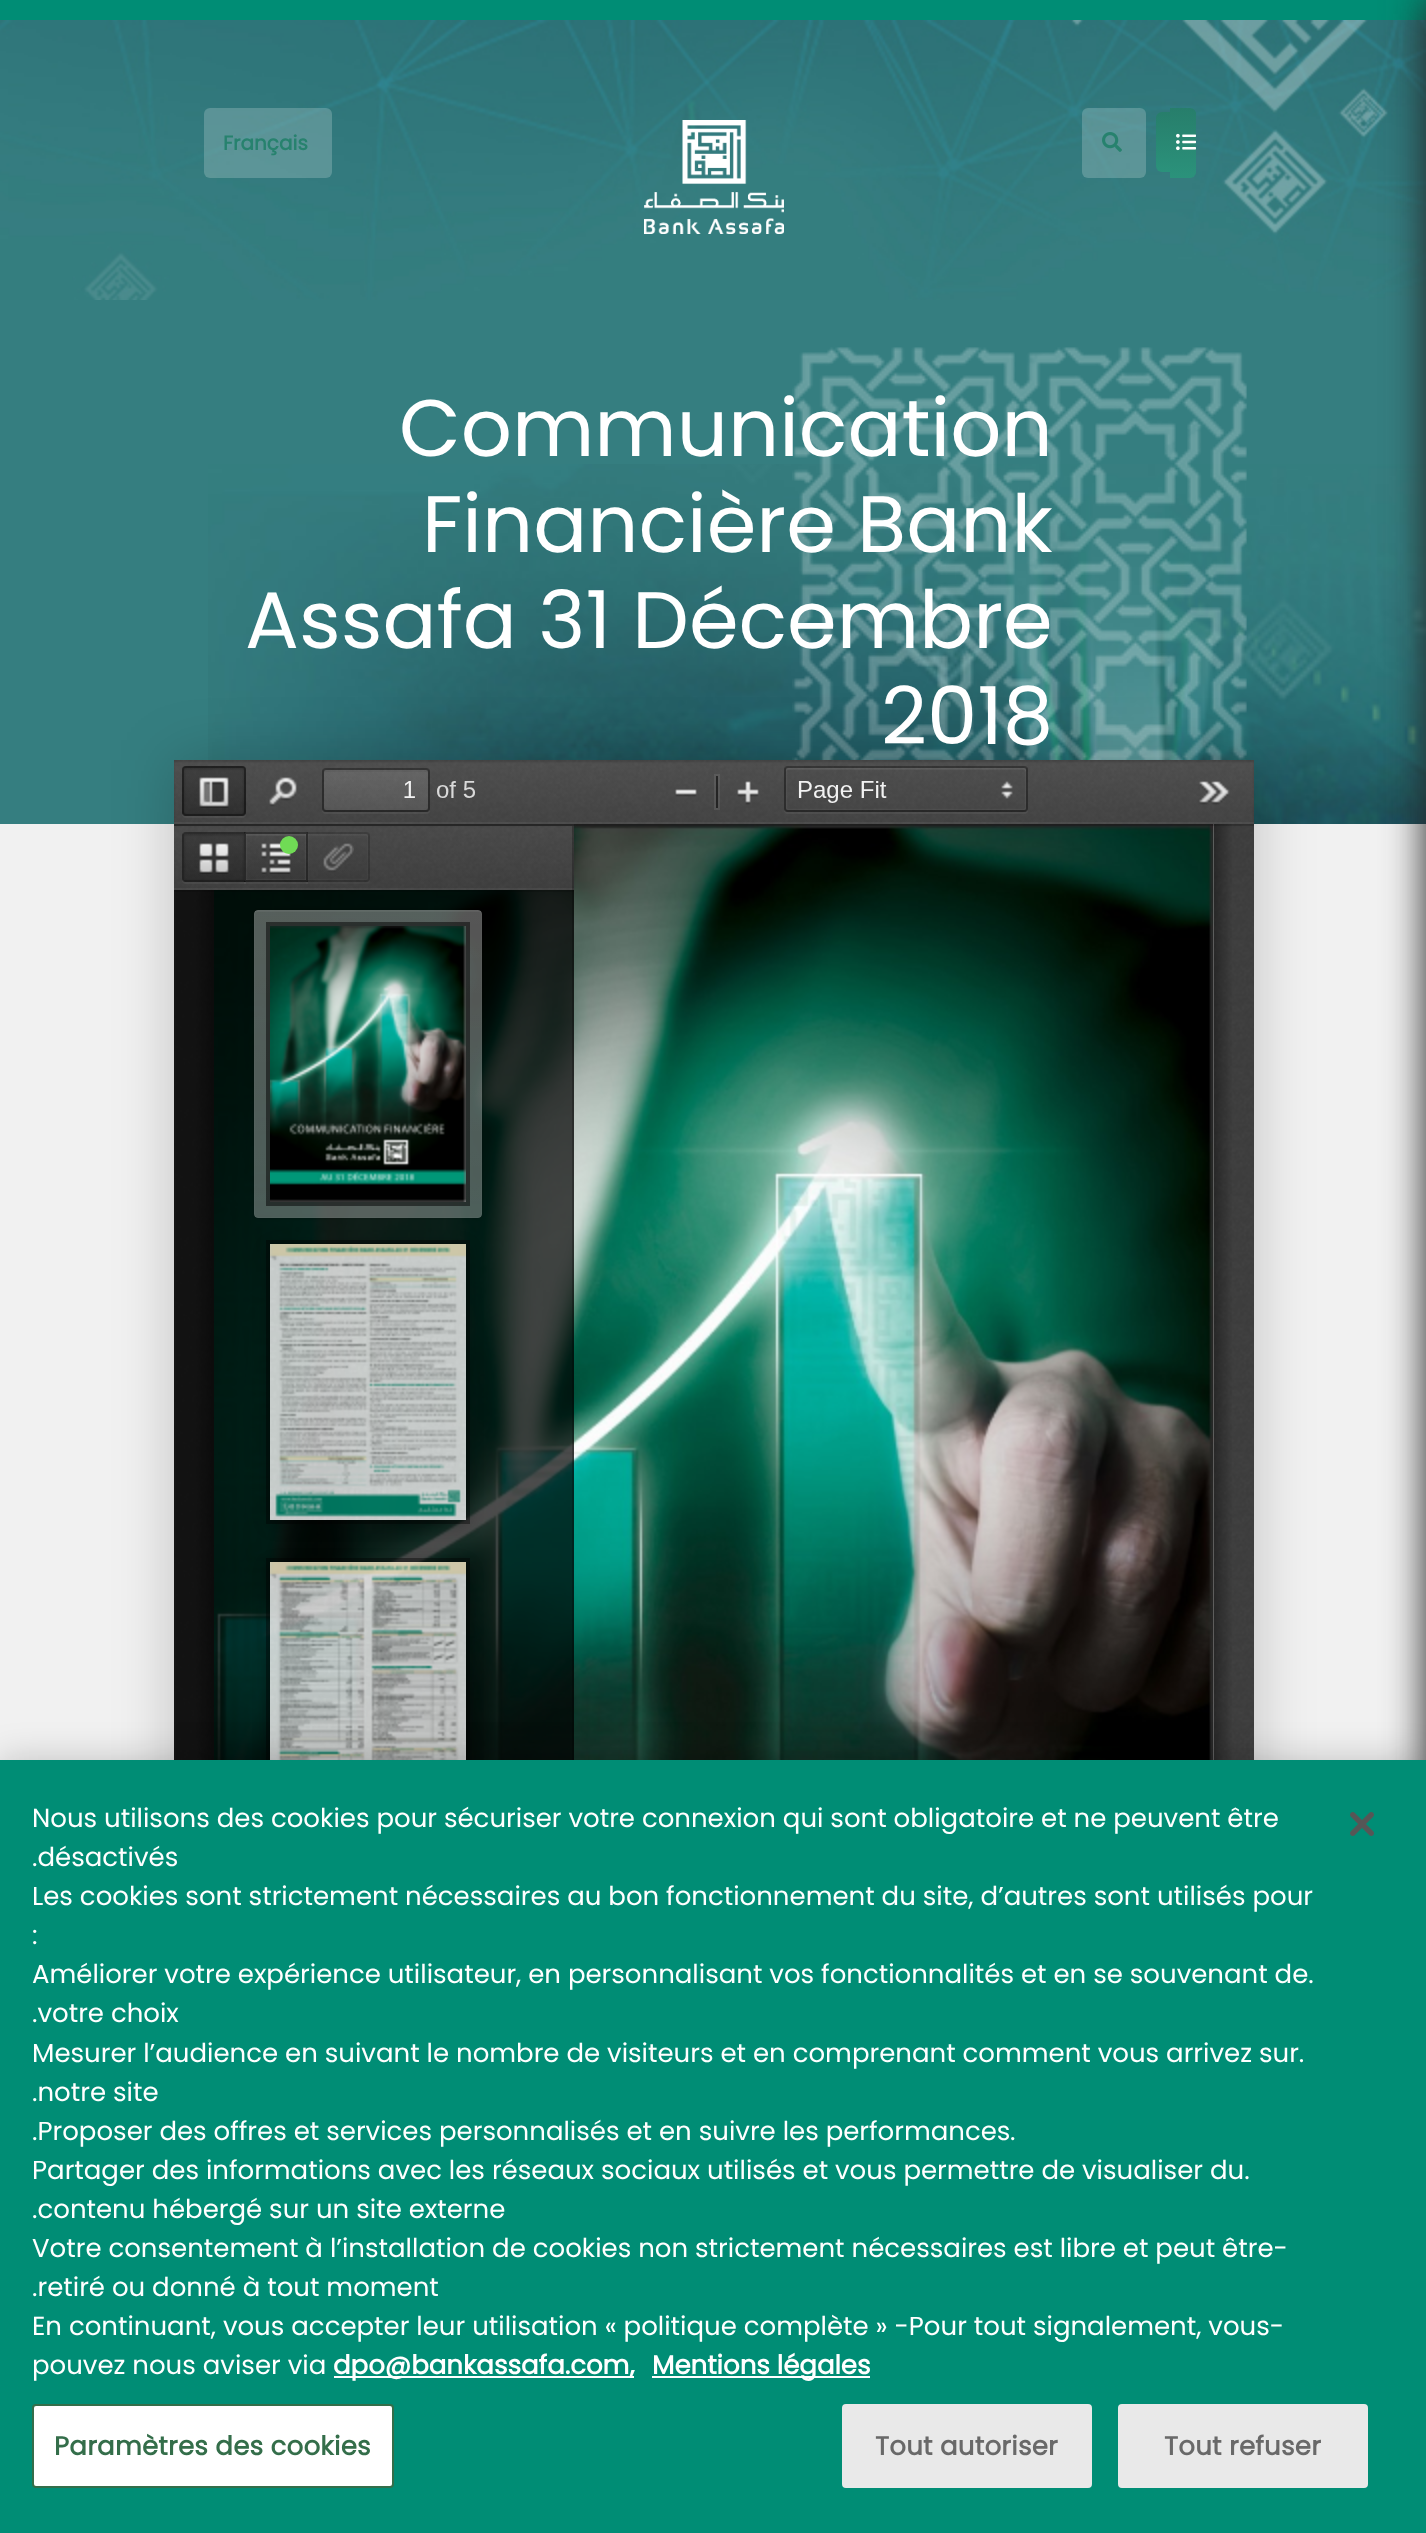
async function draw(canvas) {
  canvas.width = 1426;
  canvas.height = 2533;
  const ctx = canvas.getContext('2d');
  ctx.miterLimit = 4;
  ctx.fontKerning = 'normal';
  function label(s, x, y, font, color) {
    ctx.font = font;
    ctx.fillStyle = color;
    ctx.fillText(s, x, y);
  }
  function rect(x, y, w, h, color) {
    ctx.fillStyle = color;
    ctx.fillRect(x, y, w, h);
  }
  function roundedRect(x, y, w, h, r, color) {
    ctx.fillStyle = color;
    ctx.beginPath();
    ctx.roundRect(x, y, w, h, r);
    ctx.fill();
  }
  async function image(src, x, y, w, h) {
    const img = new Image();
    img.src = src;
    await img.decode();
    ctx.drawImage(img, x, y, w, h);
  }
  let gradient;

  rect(0, 0, 1426, 2533, '#008d75');
  await image('assets/img1.png', 0, 20, 1426, 280);
  rect(0, 824, 1426, 936, '#f1f1f1');
  rect(0, 300, 1426, 524, '#357e80');
  await image('assets/img5.png', 208, 464, 1218, 360);
  ctx.fillStyle = '#222';
  ctx.filter = 'blur(20px)';
  ctx.beginPath();
  ctx.rect(1426, 0, 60, 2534);
  ctx.fill();
  ctx.filter = 'none';
  roundedRect(204, 108, 128, 70, 6, '#ffffff33');
  label('Français', 223, 150, 'bold 20px Poppins', '#27826e');
  await image('assets/img2.png', 644, 120, 140, 114);
  roundedRect(1082, 108, 64, 70, 6, '#ffffff33');
  await image('assets/img3.png', 1102, 132, 20, 20);
  gradient = ctx.createLinearGradient(1176, 112, 1176, 172);
  gradient.addColorStop(0, '#277e6b');
  gradient.addColorStop(1, '#2b927b');
  ctx.fillStyle = gradient;
  ctx.beginPath();
  ctx.roundRect(1156, 112, 40, 60, [6, 0, 0, 6]);
  ctx.fill();
  gradient = ctx.createLinearGradient(1183, 108, 1183, 178);
  gradient.addColorStop(0, '#277e6b');
  gradient.addColorStop(1, '#2b927b');
  ctx.fillStyle = gradient;
  ctx.beginPath();
  ctx.roundRect(1170, 108, 26, 70, [0, 6, 6, 0]);
  ctx.fill();
  await image('assets/img4.png', 1176, 133, 20, 18);
  await image('assets/img6.png', 792, 347, 455, 413);
  label('Communication', 399, 456, '80px Poppins', '#fff');
  label('Financière Bank', 422, 552, '80px Poppins', '#fff');
  label('Assafa 31 Décembre', 245, 648, '80px Poppins', '#fff');
  ctx.fillStyle = '#00000033';
  ctx.filter = 'blur(30px)';
  ctx.beginPath();
  ctx.rect(174, 760, 1080, 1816);
  ctx.fill();
  ctx.filter = 'none';
  label('2018', 881, 744, '80px Poppins', '#fff');
  await image('assets/img7.png', 174, 760, 1080, 1000);
  ctx.fillStyle = '#00000033';
  ctx.filter = 'blur(18px)';
  ctx.beginPath();
  ctx.rect(0, 1760, 1426, 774);
  ctx.fill();
  ctx.filter = 'none';
  rect(0, 1760, 1426, 773, '#008d75');
  label('Nous utilisons des cookies pour sécuriser votre connexion qui sont obligatoire et ne peuvent être', 32, 1827, '26px Poppins', '#fff');
  label('.désactivés', 32, 1866, '26px Poppins', '#fff');
  label('Les cookies sont strictement nécessaires au bon fonctionnement du site, d’autres sont utilisés pour', 32, 1905, '26px Poppins', '#fff');
  label(':', 32, 1944, '26px Poppins', '#fff');
  label('Améliorer votre expérience utilisateur, en personnalisant vos fonctionnalités et en se souvenant de.', 32, 1983, '26px Poppins', '#fff');
  label('.votre choix', 32, 2022, '26px Poppins', '#fff');
  label('Mesurer l’audience en suivant le nombre de visiteurs et en comprenant comment vous arrivez sur.', 32, 2062, '26px Poppins', '#fff');
  label('.notre site', 32, 2101, '26px Poppins', '#fff');
  label('.Proposer des offres et services personnalisés et en suivre les performances', 32, 2140, '26px Poppins', '#fff');
  label('.', 1010, 2140, '26px Poppins', '#fff');
  label('Partager des informations avec les réseaux sociaux utilisés et vous permettre de visualiser du.', 32, 2179, '26px Poppins', '#fff');
  label('.contenu hébergé sur un site externe', 32, 2218, '26px Poppins', '#fff');
  label('Votre consentement à l’installation de cookies non strictement nécessaires est libre et peut être-', 32, 2257, '26px Poppins', '#fff');
  label('.retiré ou donné à tout moment', 32, 2296, '26px Poppins', '#fff');
  label('En continuant, vous accepter leur utilisation « politique complète » -Pour tout signalement, vous-', 32, 2335, '26px Poppins', '#fff');
  label('pouvez nous aviser via', 32, 2374, '26px Poppins', '#fff');
  rect(334, 2376, 300, 2, '#fff');
  label('dpo@bankassafa.com,', 333, 2374, 'bold 26px Poppins', '#fff');
  rect(652, 2376, 218, 2, '#fff');
  label('Mentions légales', 652, 2374, 'bold 26px Poppins', '#fff');
  ctx.beginPath();
  ctx.roundRect(33, 2405, 360, 82, 3);
  ctx.fill();
  ctx.strokeStyle = '#346e4a';
  ctx.lineWidth = 2;
  ctx.stroke();
  ctx.letterSpacing = '0.25px';
  label('Paramètres des cookies', 54, 2455, 'bold 26px Poppins', '#346e4a');
  ctx.fillStyle = '#e9e9e9';
  ctx.beginPath();
  ctx.roundRect(843, 2405, 248, 82, 3);
  ctx.fill();
  ctx.strokeStyle = '#e9e9e9';
  ctx.stroke();
  label('Tout autoriser', 875, 2455, 'bold 26px Poppins', '#696969');
  ctx.fillStyle = '#e9e9e9';
  ctx.beginPath();
  ctx.roundRect(1119, 2405, 248, 82, 3);
  ctx.fill();
  ctx.stroke();
  label('Tout refuser', 1164, 2455, 'bold 26px Poppins', '#696969');
  await image('assets/img8.png', 1350, 1812, 24, 24);
}

draw(document.querySelector('canvas'));
